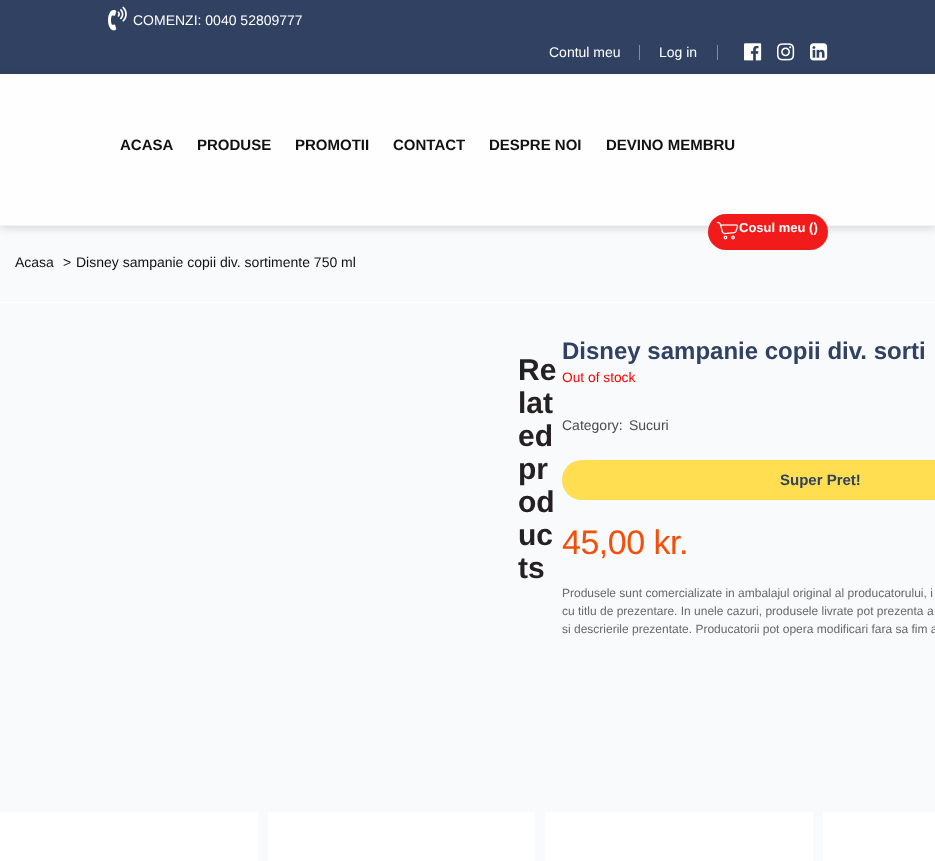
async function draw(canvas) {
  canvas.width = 935;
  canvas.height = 861;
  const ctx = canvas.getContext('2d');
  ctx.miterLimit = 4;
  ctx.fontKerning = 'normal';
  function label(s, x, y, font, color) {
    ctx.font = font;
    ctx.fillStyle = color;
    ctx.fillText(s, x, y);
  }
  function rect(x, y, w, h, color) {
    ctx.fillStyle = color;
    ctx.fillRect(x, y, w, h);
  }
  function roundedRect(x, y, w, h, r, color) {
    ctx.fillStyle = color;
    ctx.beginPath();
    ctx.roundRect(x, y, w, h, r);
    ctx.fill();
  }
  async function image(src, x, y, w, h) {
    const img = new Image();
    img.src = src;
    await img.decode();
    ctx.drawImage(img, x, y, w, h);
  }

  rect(0, 0, 935, 861, '#f8fafc');
  rect(0, 0, 935, 74, '#314162');
  await image('assets/img1.png', 108, 6, 19, 25);
  label('COMENZI: 0040 52809777', 133, 25, '14px Liberation Sans', '#fff');
  label('Contul meu', 549, 57, '14px Liberation Sans', '#fff');
  rect(639, 45, 1, 15, '#838da1');
  label('Log in', 659, 57, '14px Liberation Sans', '#fff');
  rect(717, 45, 1, 15, '#838da1');
  await image('assets/img2.png', 744, 43, 18, 18);
  await image('assets/img3.png', 777, 43, 18, 18);
  await image('assets/img4.png', 810, 43, 18, 18);
  ctx.fillStyle = '#00000026';
  ctx.filter = 'blur(4px)';
  ctx.beginPath();
  ctx.rect(1, 76, 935, 152);
  ctx.fill();
  ctx.filter = 'none';
  rect(0, 74, 935, 151, '#fefeff');
  rect(0, 225, 935, 1, '#f4f4f5');
  label('ACASA', 120, 150, 'bold 15px Liberation Sans', '#111');
  label('PRODUSE', 197, 150, 'bold 15px Liberation Sans', '#111');
  label('PROMOTII', 295, 150, 'bold 15px Liberation Sans', '#111');
  label('CONTACT', 393, 150, 'bold 15px Liberation Sans', '#111');
  label('DESPRE NOI', 489, 150, 'bold 15px Liberation Sans', '#111');
  label('DEVINO MEMBRU', 606, 150, 'bold 15px Liberation Sans', '#111');
  roundedRect(708, 214, 120, 36, 18, '#f11b1b');
  await image('assets/img5.png', 716, 221, 23, 19);
  label('Cosul meu ()', 739, 232, 'bold 13px Liberation Sans', '#fff');
  label('Acasa', 15, 267, '14px Liberation Sans', '#111');
  label('>', 63, 267, '14px Liberation Sans', '#111');
  label('Disney sampanie copii div. sortimente 750 ml', 76, 267, '14px Liberation Sans', '#111');
  label('Re', 518, 380, 'bold 30px Liberation Sans', '#252122');
  label('lat', 518, 413, 'bold 30px Liberation Sans', '#252122');
  label('ed', 518, 446, 'bold 30px Liberation Sans', '#252122');
  label('pr', 518, 479, 'bold 30px Liberation Sans', '#252122');
  label('od', 518, 512, 'bold 30px Liberation Sans', '#252122');
  label('uc', 518, 545, 'bold 30px Liberation Sans', '#252122');
  label('ts', 518, 578, 'bold 30px Liberation Sans', '#252122');
  rect(0, 812, 258, 49, '#fff');
  rect(268, 812, 267, 49, '#fff');
  rect(545, 812, 268, 49, '#fff');
  rect(823, 812, 112, 49, '#fff');
  rect(0, 302, 935, 1, '#fff');
  label('Disney sampanie copii div. sorti', 562, 359, 'bold 24px Liberation Sans', '#314162');
  label('Out of stock', 562, 382, '13.75px Liberation Sans', '#f00');
  label('Category:', 562, 430, '14px Liberation Sans', '#4a4b4c');
  label('Sucuri', 629, 430, '14px Liberation Sans', '#4a4b4c');
  roundedRect(562, 460, 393, 40, 20, '#ffde51');
  label('Super Pret!', 780, 485, 'bold 15px Liberation Sans', '#314162');
  ctx.letterSpacing = '-0.5px';
  label('45,00 kr.', 562, 554, '34px Liberation Sans', '#f44f09');
  ctx.letterSpacing = '0px';
  label('Produsele sunt comercializate in ambalajul original al producatorului, i', 562, 597, '12px Liberation Sans', '#686868');
  label('cu titlu de prezentare. In unele cazuri, produsele livrate pot prezenta a', 562, 615, '12px Liberation Sans', '#686868');
  label('si descrierile prezentate. Producatorii pot opera modificari fara sa fim a', 562, 633, '12px Liberation Sans', '#686868');
}

draw(document.querySelector('canvas'));
